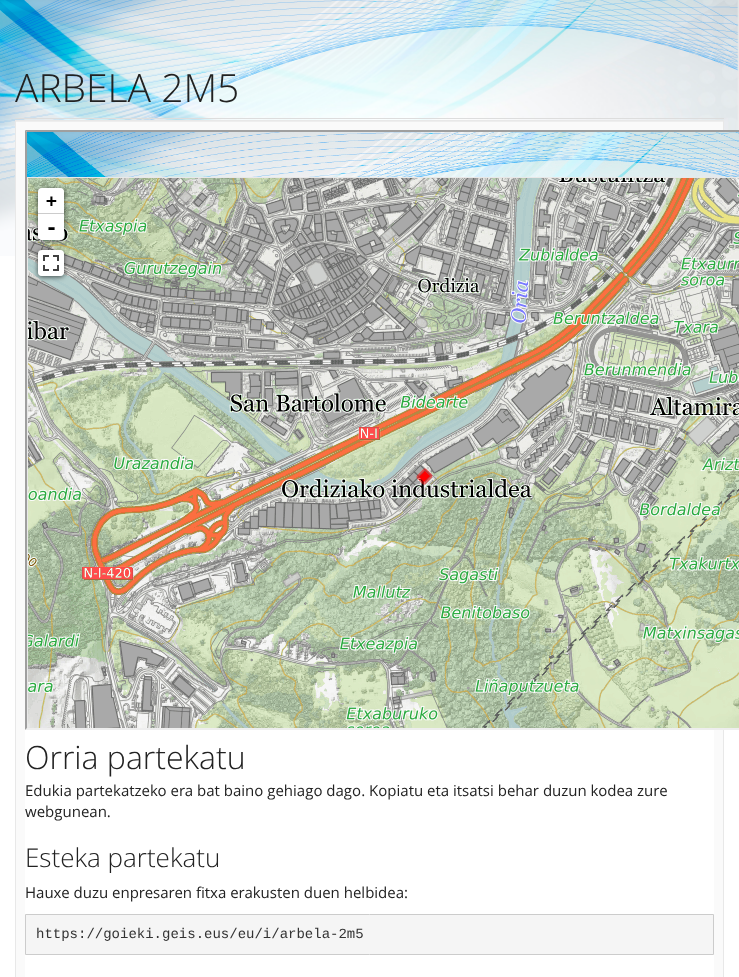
async function draw(canvas) {
  canvas.width = 739;
  canvas.height = 977;
  const ctx = canvas.getContext('2d');
  ctx.miterLimit = 4;
  ctx.fontKerning = 'normal';
  function label(s, x, y, font, color) {
    ctx.font = font;
    ctx.fillStyle = color;
    ctx.fillText(s, x, y);
  }
  function rect(x, y, w, h, color) {
    ctx.fillStyle = color;
    ctx.fillRect(x, y, w, h);
  }
  async function image(src, x, y, w, h) {
    const img = new Image();
    img.src = src;
    await img.decode();
    ctx.drawImage(img, x, y, w, h);
  }
  let path;

  rect(0, 0, 739, 977, '#fff');
  await image('assets/img1.png', 0, 0, 739, 256);
  rect(15, 118, 709, 1, '#ddd');
  label('ARBELA 2M5', 15, 102, '300 39px Open Sans', '#222');
  rect(16, 122, 707, 855, '#fafafa');
  rect(16, 121, 707, 1, '#eee');
  ctx.strokeStyle = '#e8e8e8';
  ctx.strokeRect(15.5, 120.5, 708, 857);
  rect(25, 130, 689, 847, '#fff');
  ctx.fillStyle = '#9f9f9f';
  path = new Path2D('M25 130H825L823 132H27Z');
  ctx.fill(path);
  ctx.fillStyle = '#eee';
  path = new Path2D('M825 730H25L27 728H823Z');
  ctx.fill(path);
  ctx.fillStyle = '#9f9f9f';
  path = new Path2D('M25 730V130L27 132V728Z');
  ctx.fill(path);
  await image('assets/img2.png', 27, 132, 712, 596);
  label('Orria partekatu', 25, 769, '300 32px Open Sans', '#222');
  label('Edukia partekatzeko era bat baino gehiago dago. Kopiatu eta itsatsi behar duzun kodea zure', 25, 796, '15px Open Sans', '#222');
  label('webgunean.', 25, 817, '15px Open Sans', '#222');
  label('Esteka partekatu', 25, 867, '300 26px Open Sans', '#222');
  label('Hauxe duzu enpresaren fitxa erakusten duen helbidea:', 25, 898, '15px Open Sans', '#222');
  ctx.fillStyle = '#f5f5f5';
  ctx.beginPath();
  ctx.rect(25.5, 914.5, 688, 40);
  ctx.fill();
  ctx.strokeStyle = '#ccc';
  ctx.stroke();
  label('https://goieki.geis.eus/eu/i/arbela-2m5', 36, 938, '14px Liberation Mono', '#333');
}

draw(document.querySelector('canvas'));
